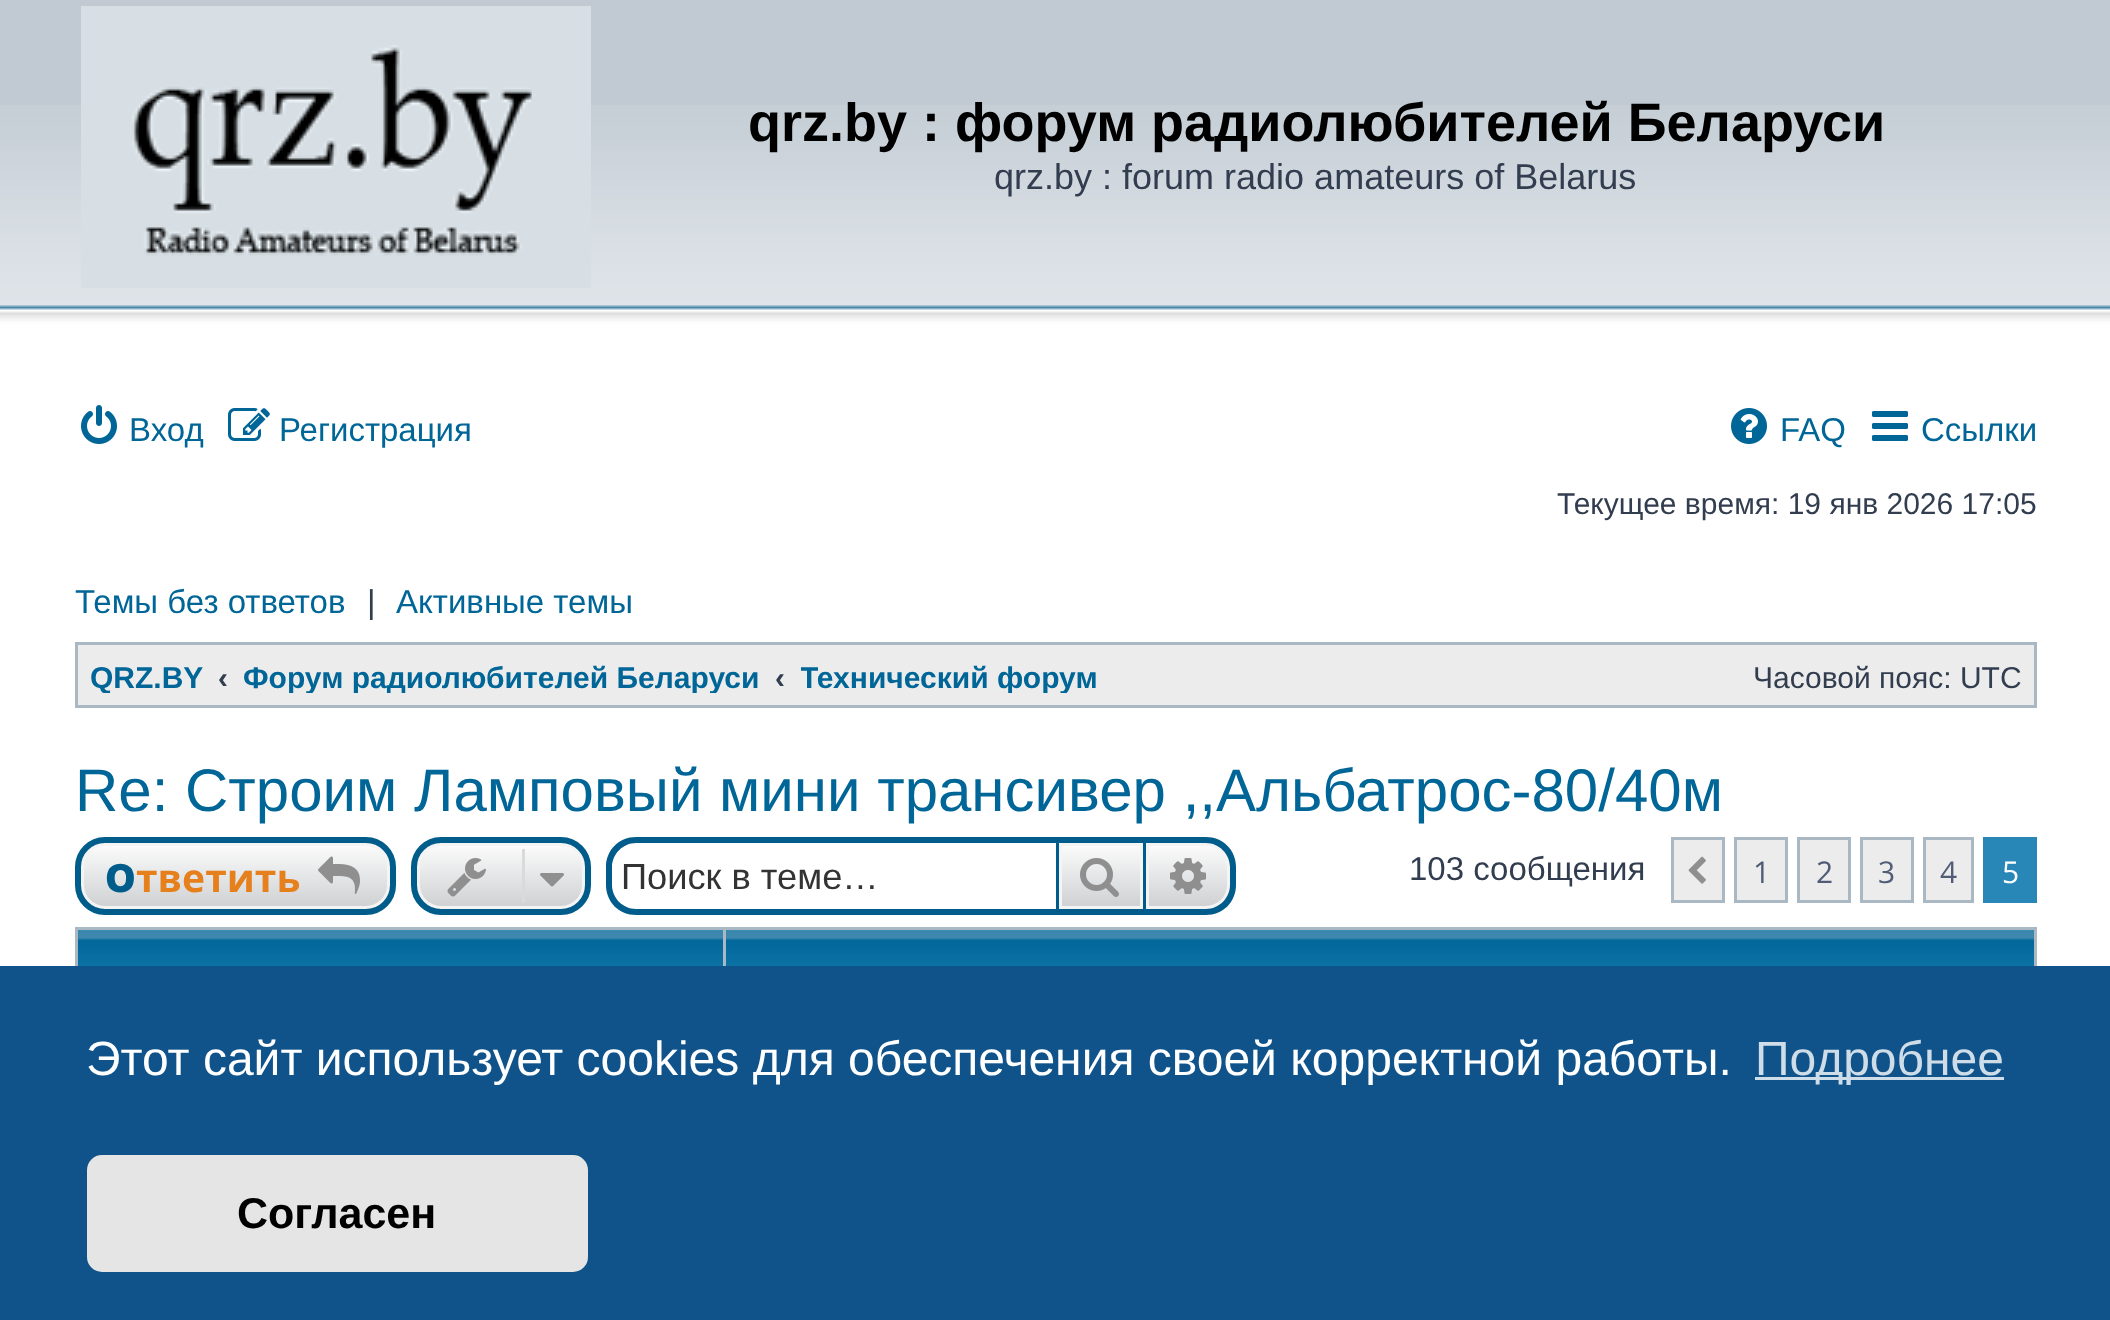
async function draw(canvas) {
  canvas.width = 2110;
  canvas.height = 1320;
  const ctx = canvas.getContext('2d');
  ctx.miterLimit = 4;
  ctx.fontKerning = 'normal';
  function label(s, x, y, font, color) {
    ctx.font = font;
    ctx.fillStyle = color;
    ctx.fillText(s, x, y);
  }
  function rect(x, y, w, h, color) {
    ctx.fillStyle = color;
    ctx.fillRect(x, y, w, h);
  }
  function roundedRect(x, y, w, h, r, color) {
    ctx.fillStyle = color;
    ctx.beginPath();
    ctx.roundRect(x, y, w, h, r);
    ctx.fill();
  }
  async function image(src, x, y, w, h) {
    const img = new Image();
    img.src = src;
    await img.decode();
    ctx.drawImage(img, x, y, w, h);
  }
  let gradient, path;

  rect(0, 0, 2110, 1320, '#fff');
  rect(0, 0, 2110, 105, '#c1cad2');
  await image('assets/img1.png', 0, 105, 2110, 234);
  await image('assets/img2.png', 81, 6, 510, 282);
  label('qrz.by : форум радиолюбителей Беларуси', 748, 141, 'bold 54px Liberation Sans', '#000');
  label('qrz.by : forum radio amateurs of Belarus', 994, 189, '36px Liberation Sans', '#323d4f');
  await image('assets/img3.png', 81, 405, 36, 39);
  label('Вход', 129, 441, '33px Liberation Sans', '#006597');
  await image('assets/img4.png', 228, 408, 42, 33);
  label('Регистрация', 279, 441, '33px Liberation Sans', '#006597');
  await image('assets/img5.png', 1731, 408, 36, 36);
  label('FAQ', 1780, 441, '33px Liberation Sans', '#006597');
  await image('assets/img6.png', 1872, 411, 36, 30);
  label('Ссылки', 1921, 441, '33px Liberation Sans', '#006597');
  label('Текущее время: 19 янв 2026 17:05', 1557, 514, '30px Liberation Sans', '#323d4f');
  label('Темы без ответов', 75, 613, '33px Liberation Sans', '#006597');
  label('|', 367, 613, '33px Liberation Sans', '#323d4f');
  label('Активные темы', 396, 613, '33px Liberation Sans', '#006597');
  ctx.fillStyle = '#ececec';
  ctx.beginPath();
  ctx.rect(76.5, 643.5, 1959, 63);
  ctx.fill();
  ctx.strokeStyle = '#a9b8c2';
  ctx.lineWidth = 3;
  ctx.stroke();
  ctx.save();
  ctx.beginPath();
  ctx.rect(90, 660, 114, 33);
  ctx.clip();
  label('QRZ.BY', 90, 688, 'bold 30px Liberation Sans', '#006597');
  ctx.restore();
  label('‹', 218, 688, 'bold 30px Liberation Sans', '#323d4f');
  ctx.save();
  ctx.beginPath();
  ctx.rect(243, 660, 516, 33);
  ctx.clip();
  label('Форум радиолюбителей Беларуси', 243, 688, 'bold 30px Liberation Sans', '#006597');
  ctx.restore();
  label('‹', 775, 688, 'bold 30px Liberation Sans', '#323d4f');
  ctx.save();
  ctx.beginPath();
  ctx.rect(801, 660, 297, 33);
  ctx.clip();
  label('Технический форум', 800, 688, 'bold 30px Liberation Sans', '#006597');
  ctx.restore();
  label('Часовой пояс: UTC', 1753, 688, '30px Liberation Sans', '#323d4f');
  label('Re: Строим Ламповый мини трансивер ,,Альбатрос-80/40м', 75, 811, '60px Liberation Sans', '#006597');
  ctx.save();
  ctx.beginPath();
  ctx.roundRect(75, 837, 321, 78, 30);
  ctx.clip();
  gradient = ctx.createLinearGradient(236, 843, 236, 909);
  gradient.addColorStop(0, '#fdfdfd');
  gradient.addColorStop(1, '#cdcfd1');
  ctx.fillStyle = gradient;
  ctx.fillRect(75, 843, 321, 66);
  ctx.restore();
  ctx.beginPath();
  ctx.roundRect(82.5, 844.5, 306, 63, 22.5);
  ctx.strokeStyle = '#f4f4f4';
  ctx.stroke();
  ctx.beginPath();
  ctx.roundRect(78, 840, 315, 72, 27);
  ctx.strokeStyle = '#005c8b';
  ctx.lineWidth = 6;
  ctx.stroke();
  label('О', 105, 892, '900 39px Noto Sans', '#005c8b');
  label('тветить', 136, 892, 'bold 39px Open Sans', '#e5801c');
  await image('assets/img7.png', 318, 856, 42, 38);
  ctx.save();
  ctx.beginPath();
  ctx.roundRect(411, 837, 180, 78, 30);
  ctx.clip();
  gradient = ctx.createLinearGradient(501, 843, 501, 909);
  gradient.addColorStop(0, '#fdfdfd');
  gradient.addColorStop(1, '#cdcfd1');
  ctx.fillStyle = gradient;
  ctx.fillRect(411, 843, 180, 66);
  ctx.restore();
  ctx.beginPath();
  ctx.roundRect(418.5, 844.5, 165, 63, 22.5);
  ctx.strokeStyle = '#f4f4f4';
  ctx.lineWidth = 3;
  ctx.stroke();
  ctx.beginPath();
  ctx.roundRect(414, 840, 174, 72, 27);
  ctx.strokeStyle = '#005c8b';
  ctx.lineWidth = 6;
  ctx.stroke();
  await image('assets/img8.png', 447, 858, 39, 39);
  rect(522, 849, 3, 54, '#dadada');
  await image('assets/img9.png', 540, 873, 24, 14);
  ctx.fillStyle = '#005c8b';
  path = new Path2D('M636 837H1056V915H636C619 915 606 902 606 885V867C606 850 619 837 636 837ZM636 843H1056V909H636C623 909 612 898 612 885V867C612 854 623 843 636 843Z');
  ctx.fill(path, 'evenodd');
  label('Поиск в теме…', 621, 889, '36.25px Liberation Sans', '#333');
  gradient = ctx.createLinearGradient(1101, 843, 1101, 909);
  gradient.addColorStop(0, '#fdfdfd');
  gradient.addColorStop(1, '#cdcfd1');
  ctx.fillStyle = gradient;
  ctx.fillRect(1062, 846, 78, 60);
  ctx.strokeStyle = '#f4f4f4';
  ctx.lineWidth = 3;
  ctx.strokeRect(1060.5, 844.5, 81, 63);
  rect(1056, 837, 90, 6, '#005c8b');
  rect(1143, 837, 3, 78, '#005c8b');
  rect(1056, 909, 90, 6, '#005c8b');
  rect(1056, 837, 3, 78, '#005c8b');
  await image('assets/img10.png', 1080, 858, 39, 39);
  gradient = ctx.createLinearGradient(1188, 843, 1188, 909);
  gradient.addColorStop(0, '#fdfdfd');
  gradient.addColorStop(1, '#cdcfd1');
  ctx.fillStyle = gradient;
  ctx.beginPath();
  ctx.roundRect(1147.5, 844.5, 81, 63, [0, 22.5, 22.5, 0]);
  ctx.fill();
  ctx.stroke();
  ctx.fillStyle = '#005c8b';
  path = new Path2D('M1146 837H1206C1223 837 1236 850 1236 867V885C1236 902 1223 915 1206 915H1146ZM1146 843H1206C1219 843 1230 854 1230 867V885C1230 898 1219 909 1206 909H1146Z');
  ctx.fill(path, 'evenodd');
  await image('assets/img11.png', 1170, 858, 36, 36);
  label('103 сообщения', 1409, 880, '33px Liberation Sans', '#323d4f');
  ctx.fillStyle = '#ececec';
  ctx.beginPath();
  ctx.rect(1672.5, 838.5, 51, 63);
  ctx.fill();
  ctx.strokeStyle = '#a9b8c2';
  ctx.stroke();
  await image('assets/img12.png', 1688, 856, 18, 28);
  ctx.beginPath();
  ctx.rect(1735.5, 838.5, 51, 63);
  ctx.fill();
  ctx.stroke();
  label('1', 1753, 883, '30px Open Sans', '#515d77');
  ctx.fillStyle = '#ececec';
  ctx.beginPath();
  ctx.rect(1798.5, 838.5, 51, 63);
  ctx.fill();
  ctx.stroke();
  label('2', 1816, 883, '30px Open Sans', '#515d77');
  ctx.fillStyle = '#ececec';
  ctx.beginPath();
  ctx.rect(1861.5, 838.5, 51, 63);
  ctx.fill();
  ctx.stroke();
  label('3', 1878, 883, '30px Open Sans', '#515d77');
  ctx.fillStyle = '#ececec';
  ctx.beginPath();
  ctx.rect(1924.5, 838.5, 48, 63);
  ctx.fill();
  ctx.stroke();
  label('4', 1940, 883, '30px Open Sans', '#515d77');
  rect(1983, 837, 54, 66, '#2887b6');
  label('5', 2002, 883, '30px Open Sans', '#fff');
  await image('assets/img13.png', 78, 930, 1956, 36);
  rect(75, 927, 1962, 3, '#a9b8c2');
  rect(2034, 927, 3, 39, '#a9b8c2');
  rect(75, 927, 3, 39, '#a9b8c2');
  rect(723, 930, 3, 36, '#a9b8c2');
  rect(0, 966, 2110, 354, '#0f538a');
  label('Этот сайт использует cookies для обеспечения своей корректной работы.', 86, 1075, '48px Liberation Sans', '#fff');
  rect(1755, 1077, 249, 3, '#cfdde8');
  label('Подробнее', 1755, 1075, '48px Liberation Sans', '#cfdde8');
  roundedRect(87, 1155, 501, 117, 15, '#e5e5e5');
  label('Согласен', 237, 1228, 'bold 43px Liberation Sans', '#000');
}

draw(document.querySelector('canvas'));
